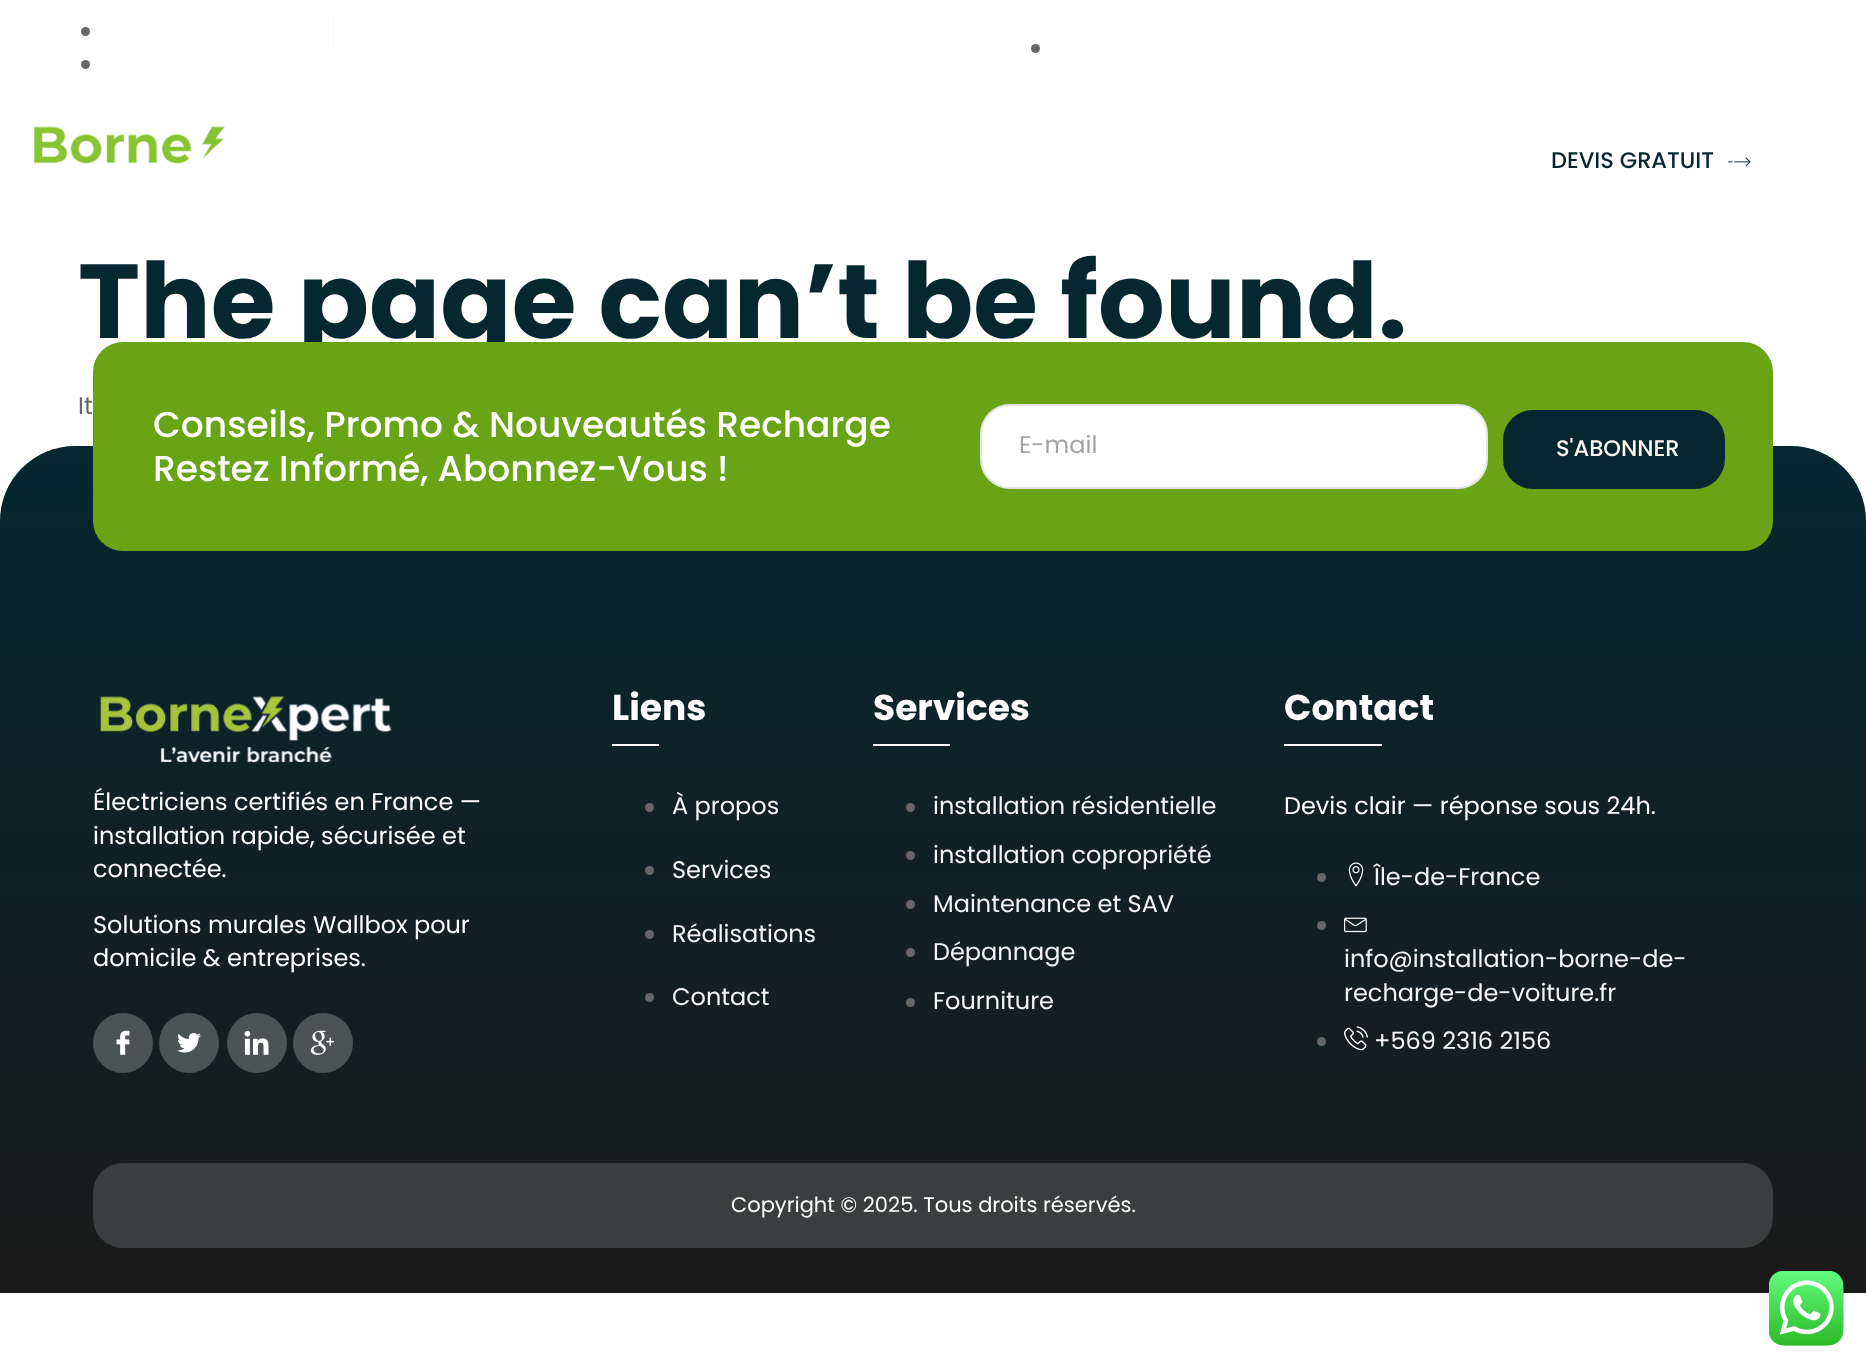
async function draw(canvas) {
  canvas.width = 1866;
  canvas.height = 1367;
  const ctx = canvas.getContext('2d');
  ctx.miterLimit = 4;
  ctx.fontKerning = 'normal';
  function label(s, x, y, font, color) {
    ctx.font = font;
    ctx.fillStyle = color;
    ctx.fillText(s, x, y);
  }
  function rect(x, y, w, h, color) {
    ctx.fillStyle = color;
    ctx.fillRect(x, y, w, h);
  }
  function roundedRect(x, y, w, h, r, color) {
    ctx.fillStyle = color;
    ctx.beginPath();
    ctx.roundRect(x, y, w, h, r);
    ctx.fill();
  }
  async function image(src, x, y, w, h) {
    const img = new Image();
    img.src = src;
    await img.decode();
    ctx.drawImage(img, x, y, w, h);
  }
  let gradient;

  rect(0, 0, 1866, 1367, '#fff');
  ctx.fillStyle = '#676767';
  ctx.beginPath();
  ctx.arc(85.5, 31.5, 4.5, 0, 2 * Math.PI);
  ctx.fill();
  rect(332, 14, 2, 34, '#fcfcfc');
  ctx.fillStyle = '#676767';
  ctx.beginPath();
  ctx.arc(85.5, 64.5, 4.5, 0, 2 * Math.PI);
  ctx.fill();
  ctx.beginPath();
  ctx.arc(1035.5, 48.5, 4.5, 0, 2 * Math.PI);
  ctx.fill();
  await image('assets/img1.png', 34, 126, 210, 57);
  label('DEVIS GRATUIT', 1551, 168, '500 22.5px Poppins', '#052730');
  await image('assets/img2.png', 1728, 157, 23, 10);
  label('The page can’t be found.', 78, 338, 'bold 105px Poppins', '#052730');
  label('It', 78, 414, '24px Poppins', '#676767');
  gradient = ctx.createLinearGradient(933, 445, 933, 1293);
  gradient.addColorStop(0, '#052730');
  gradient.addColorStop(1, '#1b1a1a');
  ctx.fillStyle = gradient;
  ctx.beginPath();
  ctx.roundRect(0, 446, 1866, 847, [75, 75, 0, 0]);
  ctx.fill();
  roundedRect(93, 342, 1680, 209, 30, '#69a316');
  label('Conseils, Promo & Nouveautés Recharge', 153, 437, '500 36px Poppins', '#fff');
  label('Restez Informé, Abonnez-Vous !', 153, 481, '500 36px Poppins', '#fff');
  roundedRect(980, 404, 508, 85, 30, '#fff');
  ctx.beginPath();
  ctx.roundRect(981, 405, 506, 83, 29);
  ctx.strokeStyle = '#70707030';
  ctx.lineWidth = 2;
  ctx.stroke();
  label('E-mail', 1019, 453, '24px Poppins', '#a4a4a4');
  roundedRect(1503, 410, 222, 79, 30, '#052730');
  label('S\'ABONNER', 1556, 456, '500 22.5px Poppins', '#fff7f1');
  await image('assets/img3.png', 100, 696, 292, 67);
  label('Électriciens certifiés en France —', 93, 810, '24px Poppins', '#fff');
  label('installation rapide, sécurisée et', 93, 844, '24px Poppins', '#fff');
  label('connectée.', 93, 877, '24px Poppins', '#fff');
  label('Solutions murales Wallbox pour', 93, 933, '24px Poppins', '#fff');
  label('domicile & entreprises.', 93, 966, '24px Poppins', '#fff');
  ctx.fillStyle = '#4c5355';
  ctx.beginPath();
  ctx.arc(123, 1043, 30, 0, 2 * Math.PI);
  ctx.fill();
  await image('assets/img4.png', 116, 1030, 14, 25);
  ctx.beginPath();
  ctx.arc(189, 1043, 30, 0, 2 * Math.PI);
  ctx.fill();
  await image('assets/img5.png', 177, 1033, 24, 20);
  ctx.beginPath();
  ctx.arc(257, 1043, 30, 0, 2 * Math.PI);
  ctx.fill();
  await image('assets/img6.png', 244, 1030, 25, 25);
  ctx.beginPath();
  ctx.arc(323, 1043, 30, 0, 2 * Math.PI);
  ctx.fill();
  await image('assets/img7.png', 310, 1030, 25, 25);
  label('Liens', 612, 720, 'bold 36px Poppins', '#fff');
  rect(612, 744, 47, 2, '#fff');
  ctx.fillStyle = '#676767';
  ctx.beginPath();
  ctx.arc(649.5, 807.5, 4.5, 0, 2 * Math.PI);
  ctx.fill();
  label('À propos', 672, 814, '24px Poppins', '#f5f5f5');
  ctx.fillStyle = '#676767';
  ctx.beginPath();
  ctx.arc(649.5, 870.5, 4.5, 0, 2 * Math.PI);
  ctx.fill();
  label('Services', 672, 878, '24px Poppins', '#f5f5f5');
  ctx.fillStyle = '#676767';
  ctx.beginPath();
  ctx.arc(649.5, 934.5, 4.5, 0, 2 * Math.PI);
  ctx.fill();
  label('Réalisations', 672, 942, '24px Poppins', '#f5f5f5');
  ctx.fillStyle = '#676767';
  ctx.beginPath();
  ctx.arc(649.5, 997.5, 4.5, 0, 2 * Math.PI);
  ctx.fill();
  label('Contact', 672, 1005, '24px Poppins', '#f5f5f5');
  label('Services', 873, 720, 'bold 36px Poppins', '#fff');
  rect(873, 744, 77, 2, '#fff');
  ctx.fillStyle = '#676767';
  ctx.beginPath();
  ctx.arc(910.5, 807.5, 4.5, 0, 2 * Math.PI);
  ctx.fill();
  label('installation résidentielle', 933, 814, '24px Poppins', '#f5f5f5');
  ctx.fillStyle = '#676767';
  ctx.beginPath();
  ctx.arc(910.5, 855.5, 4.5, 0, 2 * Math.PI);
  ctx.fill();
  label('installation copropriété', 933, 863, '24px Poppins', '#f5f5f5');
  ctx.fillStyle = '#676767';
  ctx.beginPath();
  ctx.arc(910.5, 904.5, 4.5, 0, 2 * Math.PI);
  ctx.fill();
  label('Maintenance et SAV', 933, 912, '24px Poppins', '#f5f5f5');
  ctx.fillStyle = '#676767';
  ctx.beginPath();
  ctx.arc(910.5, 952.5, 4.5, 0, 2 * Math.PI);
  ctx.fill();
  label('Dépannage', 933, 960, '24px Poppins', '#f5f5f5');
  ctx.fillStyle = '#676767';
  ctx.beginPath();
  ctx.arc(910.5, 1002.5, 4.5, 0, 2 * Math.PI);
  ctx.fill();
  label('Fourniture', 933, 1009, '24px Poppins', '#f5f5f5');
  label('Contact', 1284, 720, 'bold 36px Poppins', '#fff');
  rect(1284, 744, 98, 2, '#fff');
  label('Devis clair — réponse sous 24h.', 1284, 814, '24px Poppins', '#fff');
  ctx.fillStyle = '#676767';
  ctx.beginPath();
  ctx.arc(1321.5, 877.5, 4.5, 0, 2 * Math.PI);
  ctx.fill();
  await image('assets/img8.png', 1348, 862, 16, 25);
  label('Île-de-France', 1374, 885, '24px Poppins', '#f5f5f5');
  ctx.fillStyle = '#676767';
  ctx.beginPath();
  ctx.arc(1321.5, 925.5, 4.5, 0, 2 * Math.PI);
  ctx.fill();
  await image('assets/img9.png', 1344, 917, 23, 16);
  label('info@installation-borne-de-', 1344, 967, '24px Poppins', '#f5f5f5');
  label('recharge-de-voiture.fr', 1344, 1001, '24px Poppins', '#f5f5f5');
  ctx.fillStyle = '#676767';
  ctx.beginPath();
  ctx.arc(1321.5, 1041.5, 4.5, 0, 2 * Math.PI);
  ctx.fill();
  await image('assets/img10.png', 1344, 1026, 24, 25);
  label('+569 2316 2156', 1374, 1049, '24px Poppins', '#f5f5f5');
  roundedRect(93, 1163, 1680, 85, 30, '#3b3e3e');
  label('Copyright © 2025. Tous droits réservés.', 731, 1212, '21px Poppins', '#fff');
  await image('assets/img11.png', 1769, 1271, 75, 75);
}

draw(document.querySelector('canvas'));
